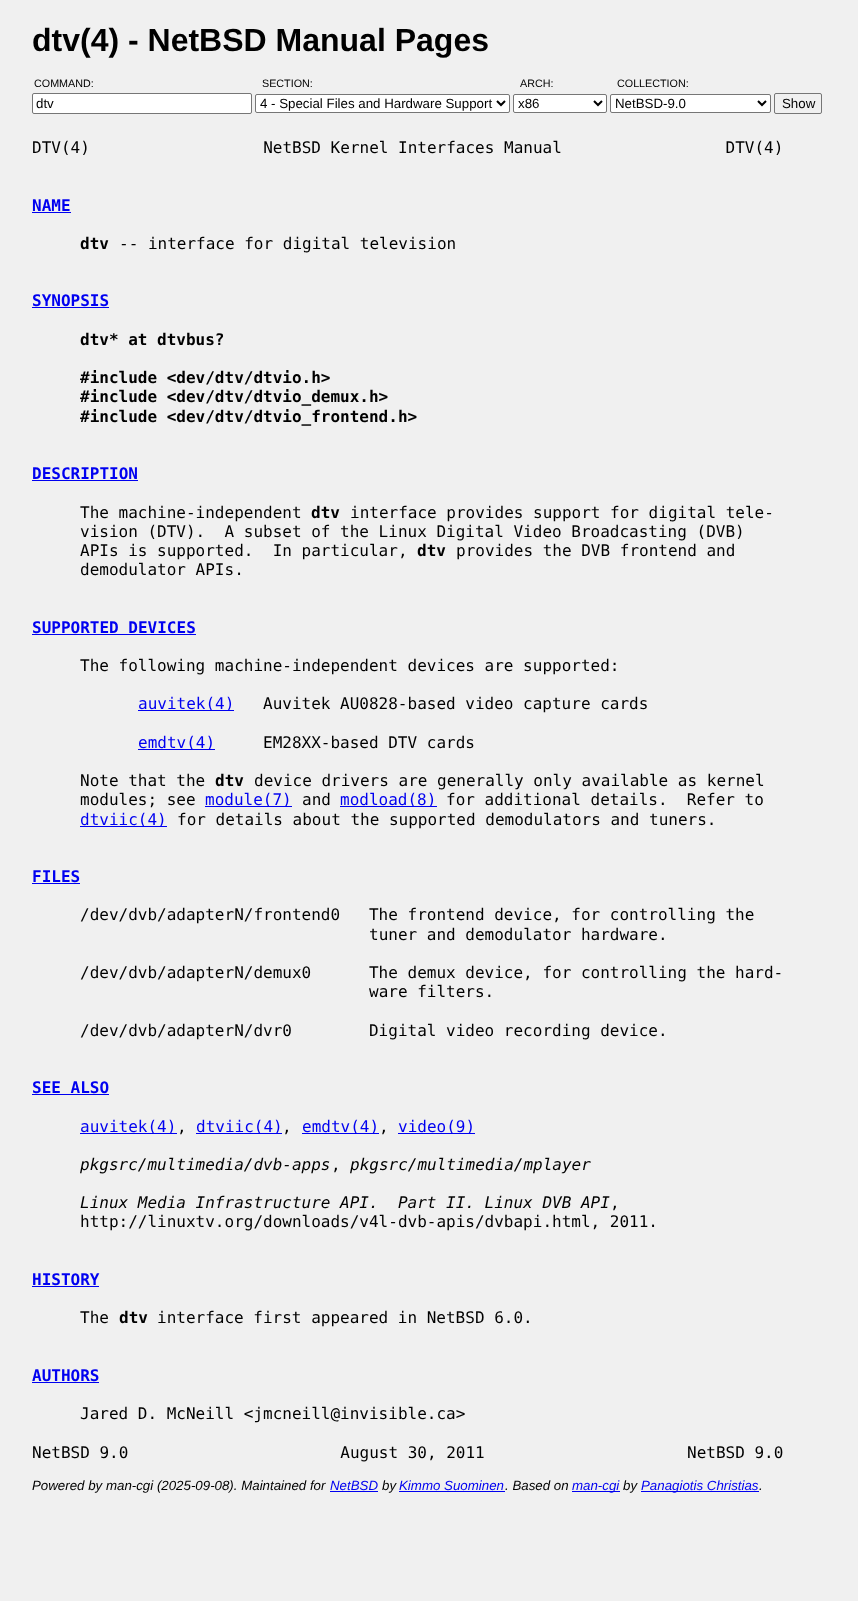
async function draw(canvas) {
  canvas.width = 858;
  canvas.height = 1601;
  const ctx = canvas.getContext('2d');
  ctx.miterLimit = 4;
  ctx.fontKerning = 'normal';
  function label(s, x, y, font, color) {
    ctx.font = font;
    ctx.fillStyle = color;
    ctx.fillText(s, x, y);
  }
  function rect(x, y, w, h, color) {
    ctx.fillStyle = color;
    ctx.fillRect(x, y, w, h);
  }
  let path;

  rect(0, 0, 858, 1601, '#f0f0f0');
  label('dtv(4) - NetBSD Manual Pages', 32, 51, 'bold 32px Liberation Sans', '#000');
  label('COMMAND:', 34, 87, '10.75px Liberation Sans', '#000');
  ctx.fillStyle = '#fff';
  ctx.beginPath();
  ctx.roundRect(32.5, 93.5, 219, 20, 1.5);
  ctx.fill();
  ctx.strokeStyle = '#767676';
  ctx.stroke();
  label('dtv', 36, 108, '13.3px Liberation Sans', '#000');
  label('SECTION:', 262, 87, '10.75px Liberation Sans', '#000');
  ctx.fillStyle = '#fff';
  ctx.beginPath();
  ctx.roundRect(255.5, 94.5, 254, 18, 1.5);
  ctx.fill();
  ctx.stroke();
  path = new Path2D('M497 101L501 105L505 101');
  ctx.strokeStyle = '#000';
  ctx.lineWidth = 2;
  ctx.stroke(path);
  label('4 - Special Files and Hardware Support', 260, 108, '13.3px Liberation Sans', '#000');
  label('ARCH:', 520, 87, '10.75px Liberation Sans', '#000');
  ctx.fillStyle = '#fff';
  ctx.beginPath();
  ctx.roundRect(513.5, 94.5, 93, 18, 1.5);
  ctx.fill();
  ctx.strokeStyle = '#767676';
  ctx.lineWidth = 1;
  ctx.stroke();
  path = new Path2D('M594 101L598 105L602 101');
  ctx.strokeStyle = '#000';
  ctx.lineWidth = 2;
  ctx.stroke(path);
  label('x86', 518, 108, '13.3px Liberation Sans', '#000');
  label('COLLECTION:', 617, 87, '10.75px Liberation Sans', '#000');
  ctx.fillStyle = '#fff';
  ctx.beginPath();
  ctx.roundRect(610.5, 94.5, 160, 18, 1.5);
  ctx.fill();
  ctx.strokeStyle = '#767676';
  ctx.lineWidth = 1;
  ctx.stroke();
  path = new Path2D('M758 101L762 105L766 101');
  ctx.strokeStyle = '#000';
  ctx.lineWidth = 2;
  ctx.stroke(path);
  label('NetBSD-9.0', 615, 108, '13.3px Liberation Sans', '#000');
  ctx.beginPath();
  ctx.roundRect(774.5, 93.5, 47, 20, 1.5);
  ctx.strokeStyle = '#767676';
  ctx.lineWidth = 1;
  ctx.stroke();
  label('Show', 782, 108, '13.3px Liberation Sans', '#000');
  label('DTV(4)                  NetBSD Kernel Interfaces Manual                 DTV(4)', 32, 153, '16px DejaVu Sans Mono', '#000');
  label('NAME', 32, 211, 'bold 16px DejaVu Sans Mono', '#0000f0');
  rect(32, 212, 39, 1, '#0000f0');
  label('dtv', 80, 249, 'bold 16px DejaVu Sans Mono', '#000');
  label('-- interface for digital television', 119, 249, '16px DejaVu Sans Mono', '#000');
  label('SYNOPSIS', 32, 306, 'bold 16px DejaVu Sans Mono', '#0000f0');
  rect(32, 307, 77, 1, '#0000f0');
  label('dtv* at dtvbus?', 80, 345, 'bold 16px DejaVu Sans Mono', '#000');
  label('#include <dev/dtv/dtvio.h>', 80, 383, 'bold 16px DejaVu Sans Mono', '#000');
  label('#include <dev/dtv/dtvio_demux.h>', 80, 402, 'bold 16px DejaVu Sans Mono', '#000');
  label('#include <dev/dtv/dtvio_frontend.h>', 80, 422, 'bold 16px DejaVu Sans Mono', '#000');
  label('DESCRIPTION', 32, 479, 'bold 16px DejaVu Sans Mono', '#0000f0');
  rect(32, 480, 106, 1, '#0000f0');
  label('The machine-independent', 80, 518, '16px DejaVu Sans Mono', '#000');
  label('dtv', 311, 518, 'bold 16px DejaVu Sans Mono', '#000');
  label('interface provides support for digital tele-', 350, 518, '16px DejaVu Sans Mono', '#000');
  label('vision (DTV).  A subset of the Linux Digital Video Broadcasting (DVB)', 80, 537, '16px DejaVu Sans Mono', '#000');
  label('APIs is supported.  In particular,', 80, 556, '16px DejaVu Sans Mono', '#000');
  label('dtv', 417, 556, 'bold 16px DejaVu Sans Mono', '#000');
  label('provides the DVB frontend and', 456, 556, '16px DejaVu Sans Mono', '#000');
  label('demodulator APIs.', 80, 575, '16px DejaVu Sans Mono', '#000');
  label('SUPPORTED DEVICES', 32, 633, 'bold 16px DejaVu Sans Mono', '#0000f0');
  rect(32, 634, 164, 1, '#0000f0');
  label('The following machine-independent devices are supported:', 80, 671, '16px DejaVu Sans Mono', '#000');
  rect(138, 710, 96, 1, '#0000f0');
  label('auvitek(4)', 138, 709, '16px DejaVu Sans Mono', '#0000f0');
  label('Auvitek AU0828-based video capture cards', 263, 709, '16px DejaVu Sans Mono', '#000');
  rect(138, 749, 77, 1, '#0000f0');
  label('emdtv(4)', 138, 748, '16px DejaVu Sans Mono', '#0000f0');
  label('EM28XX-based DTV cards', 263, 748, '16px DejaVu Sans Mono', '#000');
  label('Note that the', 80, 786, '16px DejaVu Sans Mono', '#000');
  label('dtv', 215, 786, 'bold 16px DejaVu Sans Mono', '#000');
  label('device drivers are generally only available as kernel', 254, 786, '16px DejaVu Sans Mono', '#000');
  label('modules; see', 80, 805, '16px DejaVu Sans Mono', '#000');
  rect(205, 806, 87, 1, '#0000f0');
  label('module(7)', 205, 805, '16px DejaVu Sans Mono', '#0000f0');
  label('and', 302, 805, '16px DejaVu Sans Mono', '#000');
  rect(340, 806, 97, 1, '#0000f0');
  label('modload(8)', 340, 805, '16px DejaVu Sans Mono', '#0000f0');
  label('for additional details.  Refer to', 446, 805, '16px DejaVu Sans Mono', '#000');
  rect(80, 826, 87, 1, '#0000f0');
  label('dtviic(4)', 80, 825, '16px DejaVu Sans Mono', '#0000f0');
  label('for details about the supported demodulators and tuners.', 177, 825, '16px DejaVu Sans Mono', '#000');
  label('FILES', 32, 882, 'bold 16px DejaVu Sans Mono', '#0000f0');
  rect(32, 883, 48, 1, '#0000f0');
  label('/dev/dvb/adapterN/frontend0   The frontend device, for controlling the', 80, 920, '16px DejaVu Sans Mono', '#000');
  label('tuner and demodulator hardware.', 369, 940, '16px DejaVu Sans Mono', '#000');
  label('/dev/dvb/adapterN/demux0      The demux device, for controlling the hard-', 80, 978, '16px DejaVu Sans Mono', '#000');
  label('ware filters.', 369, 997, '16px DejaVu Sans Mono', '#000');
  label('/dev/dvb/adapterN/dvr0        Digital video recording device.', 80, 1036, '16px DejaVu Sans Mono', '#000');
  label('SEE ALSO', 32, 1093, 'bold 16px DejaVu Sans Mono', '#0000f0');
  rect(32, 1094, 77, 1, '#0000f0');
  rect(80, 1133, 97, 1, '#0000f0');
  label('auvitek(4)', 80, 1132, '16px DejaVu Sans Mono', '#0000f0');
  label(',', 177, 1132, '16px DejaVu Sans Mono', '#000');
  rect(196, 1133, 86, 1, '#0000f0');
  label('dtviic(4)', 196, 1132, '16px DejaVu Sans Mono', '#0000f0');
  label(',', 282, 1132, '16px DejaVu Sans Mono', '#000');
  rect(302, 1133, 77, 1, '#0000f0');
  label('emdtv(4)', 302, 1132, '16px DejaVu Sans Mono', '#0000f0');
  label(',', 379, 1132, '16px DejaVu Sans Mono', '#000');
  rect(398, 1133, 77, 1, '#0000f0');
  label('video(9)', 398, 1132, '16px DejaVu Sans Mono', '#0000f0');
  label('pkgsrc/multimedia/dvb-apps', 80, 1170, 'italic 16px DejaVu Sans Mono', '#000');
  label(',', 331, 1170, '16px DejaVu Sans Mono', '#000');
  label('pkgsrc/multimedia/mplayer', 350, 1170, 'italic 16px DejaVu Sans Mono', '#000');
  label('Linux Media Infrastructure API.  Part II. Linux DVB API', 80, 1208, 'italic 16px DejaVu Sans Mono', '#000');
  label(',', 610, 1208, '16px DejaVu Sans Mono', '#000');
  label('http://linuxtv.org/downloads/v4l-dvb-apis/dvbapi.html, 2011.', 80, 1227, '16px DejaVu Sans Mono', '#000');
  label('HISTORY', 32, 1285, 'bold 16px DejaVu Sans Mono', '#0000f0');
  rect(32, 1286, 67, 1, '#0000f0');
  label('The', 80, 1323, '16px DejaVu Sans Mono', '#000');
  label('dtv', 119, 1323, 'bold 16px DejaVu Sans Mono', '#000');
  label('interface first appeared in NetBSD 6.0.', 157, 1323, '16px DejaVu Sans Mono', '#000');
  label('AUTHORS', 32, 1381, 'bold 16px DejaVu Sans Mono', '#0000f0');
  rect(32, 1382, 67, 1, '#0000f0');
  label('Jared D. McNeill <jmcneill@invisible.ca>', 80, 1419, '16px DejaVu Sans Mono', '#000');
  label('NetBSD 9.0                      August 30, 2011                     NetBSD 9.0', 32, 1458, '16px DejaVu Sans Mono', '#000');
  label('Powered by man-cgi (2025-09-08). Maintained for', 32, 1490, 'italic 13.3px Liberation Sans', '#000');
  label('NetBSD', 330, 1490, 'italic 13.3px Liberation Sans', '#0000f0');
  rect(330, 1491, 48, 1, '#0000f0');
  label('by', 382, 1490, 'italic 13.3px Liberation Sans', '#000');
  label('Kimmo Suominen', 399, 1490, 'italic 13.3px Liberation Sans', '#0000f0');
  rect(399, 1491, 106, 1, '#0000f0');
  label('. Based on', 505, 1490, 'italic 13.3px Liberation Sans', '#000');
  rect(572, 1491, 48, 1, '#0000f0');
  label('man-cgi', 572, 1490, 'italic 13.3px Liberation Sans', '#0000f0');
  label('by', 623, 1490, 'italic 13.3px Liberation Sans', '#000');
  rect(641, 1491, 118, 1, '#0000f0');
  label('Panagiotis Christias', 641, 1490, 'italic 13.3px Liberation Sans', '#0000f0');
  label('.', 759, 1490, 'italic 13.3px Liberation Sans', '#000');
}

draw(document.querySelector('canvas'));
